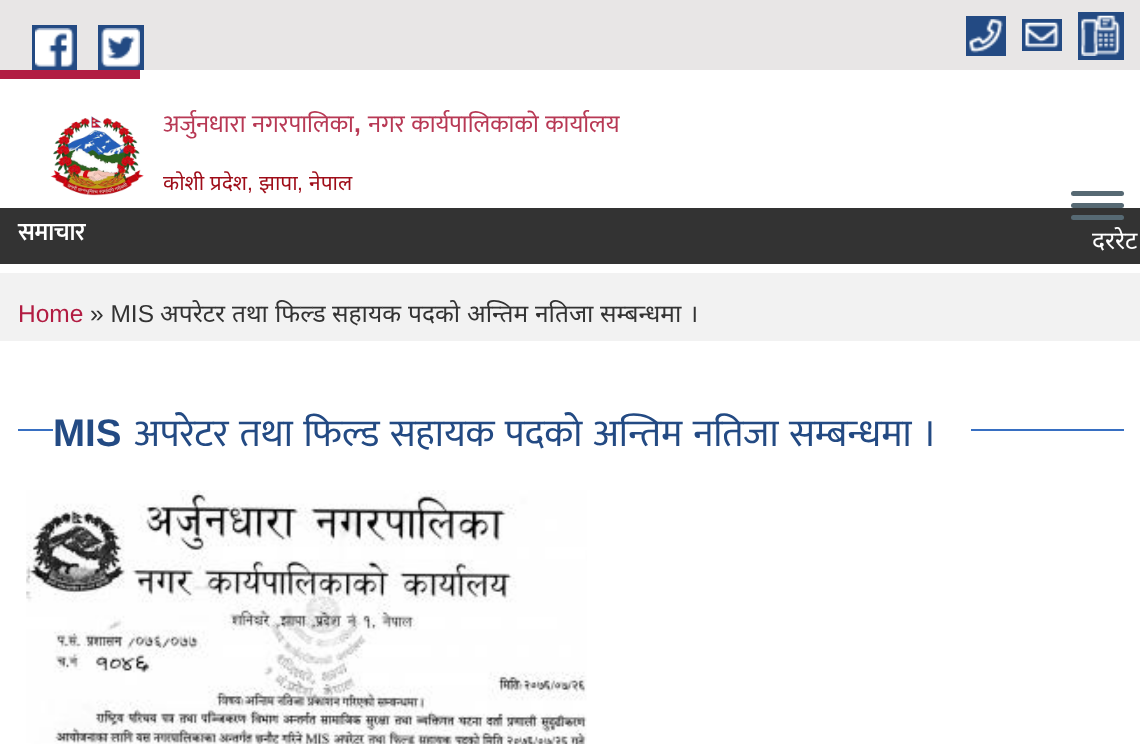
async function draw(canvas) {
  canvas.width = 1140;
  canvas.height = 744;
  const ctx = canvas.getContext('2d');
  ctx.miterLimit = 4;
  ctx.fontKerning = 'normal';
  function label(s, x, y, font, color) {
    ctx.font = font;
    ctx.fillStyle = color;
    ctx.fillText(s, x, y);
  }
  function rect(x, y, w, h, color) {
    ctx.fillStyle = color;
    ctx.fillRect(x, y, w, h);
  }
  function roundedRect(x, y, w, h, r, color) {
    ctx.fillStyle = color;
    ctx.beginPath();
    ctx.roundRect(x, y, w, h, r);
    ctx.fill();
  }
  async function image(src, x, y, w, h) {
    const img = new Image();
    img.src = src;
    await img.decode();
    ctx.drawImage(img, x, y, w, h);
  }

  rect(0, 0, 1140, 744, '#fff');
  rect(0, 0, 1140, 70, '#e8e6e6');
  rect(32, 25, 45, 45, '#234a83');
  rect(98, 25, 46, 45, '#234a83');
  await image('assets/img1.png', 35, 28, 39, 39);
  await image('assets/img2.png', 101, 28, 39, 39);
  rect(1078, 12, 46, 48, '#234a83');
  rect(966, 16, 40, 40, '#234a83');
  await image('assets/img3.png', 1081, 15, 39, 41);
  await image('assets/img4.png', 969, 19, 34, 34);
  rect(1022, 19, 40, 32, '#234a83');
  await image('assets/img5.png', 1025, 22, 34, 26);
  rect(0, 70, 140, 9, '#b21c42');
  await image('assets/img6.png', 50, 116, 94, 80);
  ctx.wordSpacing = '1px';
  label('अर्जुनधारा नगरपालिका', 163, 132, '24.5px Mukta', '#b83955');
  ctx.wordSpacing = '0px';
  label(',', 354, 132, 'bold 24.5px Liberation Sans', '#b83955');
  ctx.wordSpacing = '1px';
  label('नगर कार्यपालिकाको कार्यालय', 368, 132, '24.5px Mukta', '#b83955');
  ctx.wordSpacing = '0px';
  label('कोशी प्रदेश', 163, 190, '21px Noto Sans', '#9e0c18');
  label(',', 247, 190, '21px Liberation Sans', '#9e0c18');
  label('झापा', 259, 190, '21px Noto Sans', '#9e0c18');
  label(',', 297, 190, '21px Liberation Sans', '#9e0c18');
  label('नेपाल', 309, 190, '21px Noto Sans', '#9e0c18');
  roundedRect(1071, 191, 53, 5, 2.5, '#566973');
  roundedRect(1071, 203, 53, 5, 2.5, '#566973');
  rect(0, 208, 1140, 56, '#333');
  roundedRect(1071, 215, 53, 5, 2.5, '#566973');
  label('समाचार', 18, 240, 'bold 24.5px Mukta', '#fff');
  label('दररेट', 1092, 249, '24.5px Noto Sans', '#fff');
  rect(0, 273, 1140, 68, '#f2f2f2');
  label('Home', 18, 322, '24.5px Liberation Sans', '#b21c42');
  label('» MIS', 90, 322, '24.5px Liberation Sans', '#333');
  label('अपरेटर', 160, 322, '24.5px Noto Sans', '#333');
  label('तथा', 232, 322, '24.5px Noto Sans', '#333');
  label('फिल्ड', 275, 322, '24.5px Noto Sans', '#333');
  label('सहायक', 332, 322, '24.5px Noto Sans', '#333');
  label('पदको', 408, 322, '24.5px Noto Sans', '#333');
  label('अन्तिम', 467, 322, '24.5px Noto Sans', '#333');
  label('नतिजा', 535, 322, '24.5px Noto Sans', '#333');
  label('सम्बन्धमा', 600, 322, '24.5px Noto Sans', '#333');
  label('।', 689, 322, '24.5px Noto Sans', '#333');
  rect(18, 429, 1106, 2, '#376fc2');
  rect(53, 429, 918, 2, '#fff');
  label('MIS', 53, 446, 'bold 38.5px Liberation Sans', '#234a83');
  ctx.wordSpacing = '2px';
  label('अपरेटर तथा फिल्ड सहायक पदको अन्तिम नतिजा सम्बन्धमा ।', 134, 446, '38.5px Mukta', '#234a83');
  await image('assets/img7.png', 26, 490, 561, 254);
}

draw(document.querySelector('canvas'));
